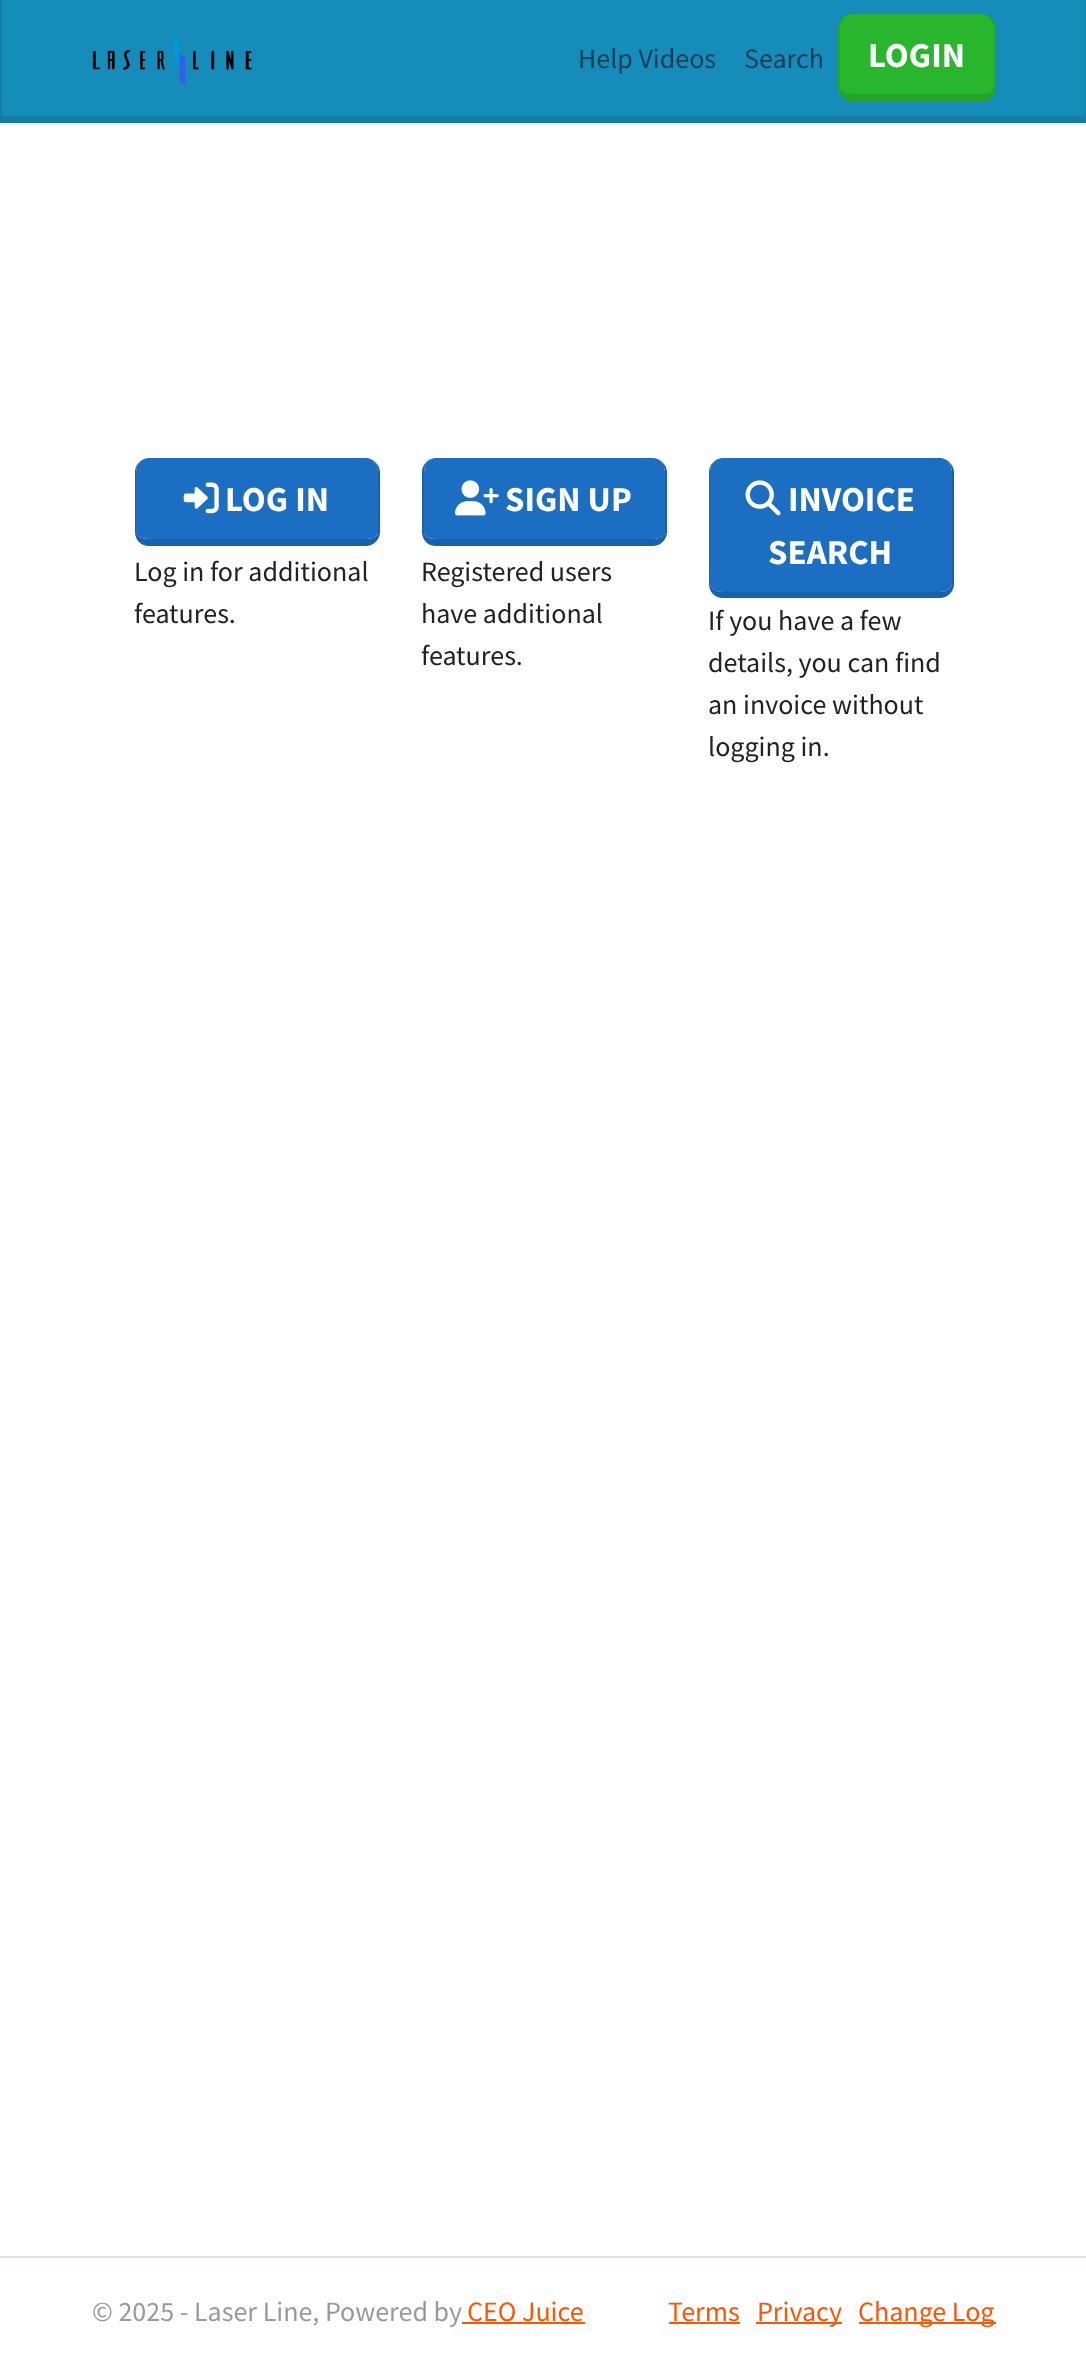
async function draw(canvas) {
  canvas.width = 1086;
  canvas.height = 2362;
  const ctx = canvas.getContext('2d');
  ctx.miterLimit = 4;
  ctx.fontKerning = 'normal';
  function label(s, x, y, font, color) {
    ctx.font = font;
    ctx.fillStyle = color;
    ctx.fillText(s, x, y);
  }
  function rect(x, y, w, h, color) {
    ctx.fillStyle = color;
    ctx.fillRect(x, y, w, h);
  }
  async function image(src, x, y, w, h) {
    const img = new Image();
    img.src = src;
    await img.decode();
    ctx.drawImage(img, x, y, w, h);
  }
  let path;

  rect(0, 0, 1086, 2362, '#fff');
  rect(2, 0, 1083, 116, '#158cba');
  rect(1085, 0, 1, 123, '#137ea7');
  rect(0, 116, 1086, 7, '#137ea7');
  rect(0, 0, 2, 123, '#137ea7');
  await image('assets/img1.png', 92, 33, 160, 53);
  label('Help Videos', 578, 68, '28px Source Sans Pro', '#093f54');
  label('Search', 744, 68, '28px Source Sans Pro', '#093f54');
  ctx.fillStyle = '#28b62c';
  path = new Path2D('M852 14H982C989 14 994 20 994 28V88C994 91 989 94 982 94H852C845 94 840 91 840 88V28C840 20 845 14 852 14Z');
  ctx.fill(path);
  ctx.fillStyle = '#24a428';
  path = new Path2D('M852 14H982C989 14 996 20 996 28V88C996 95 989 102 982 102H852C845 102 838 95 838 88V28C838 20 845 14 852 14ZM852 14H982C989 14 994 20 994 28V88C994 91 989 94 982 94H852C845 94 840 91 840 88V28C840 20 845 14 852 14Z');
  ctx.fill(path, 'evenodd');
  label('LOGIN', 868, 67, 'bold 35px Source Sans Pro', '#fff');
  ctx.fillStyle = '#1b6ec2';
  path = new Path2D('M149 458H366C373 458 378 465 378 472V532C378 536 373 539 366 539H149C142 539 136 536 136 532V472C136 465 142 458 149 458Z');
  ctx.fill(path);
  ctx.fillStyle = '#1861ac';
  path = new Path2D('M149 458H366C373 458 380 465 380 472V532C380 540 373 546 366 546H149C141 546 135 540 135 532V472C135 465 141 458 149 458ZM149 458H366C373 458 378 465 378 472V532C378 536 373 539 366 539H149C142 539 136 536 136 532V472C136 465 142 458 149 458Z');
  ctx.fill(path, 'evenodd');
  await image('assets/img2.png', 183, 482, 36, 32);
  label('LOG IN', 225, 511, 'bold 35px Source Sans Pro', '#fff');
  label('Log in for additional', 134, 581, '28px Source Sans Pro', '#222');
  label('features.', 134, 623, '28px Source Sans Pro', '#222');
  ctx.fillStyle = '#1b6ec2';
  path = new Path2D('M436 458H653C660 458 665 465 665 472V532C665 536 660 539 653 539H436C429 539 424 536 424 532V472C424 465 429 458 436 458Z');
  ctx.fill(path);
  ctx.fillStyle = '#1861ac';
  path = new Path2D('M436 458H653C660 458 667 465 667 472V532C667 540 660 546 653 546H436C428 546 422 540 422 532V472C422 465 428 458 436 458ZM436 458H653C660 458 665 465 665 472V532C665 536 660 539 653 539H436C429 539 424 536 424 532V472C424 465 429 458 436 458Z');
  ctx.fill(path, 'evenodd');
  await image('assets/img3.png', 455, 480, 44, 36);
  label('SIGN UP', 505, 511, 'bold 35px Source Sans Pro', '#fff');
  label('Registered users', 421, 581, '28px Source Sans Pro', '#222');
  label('have additional', 421, 623, '28px Source Sans Pro', '#222');
  label('features.', 421, 665, '28px Source Sans Pro', '#222');
  ctx.fillStyle = '#1b6ec2';
  path = new Path2D('M723 458H940C947 458 952 465 952 472V584C952 588 947 592 940 592H723C716 592 710 588 710 584V472C710 465 716 458 723 458Z');
  ctx.fill(path);
  ctx.fillStyle = '#1861ac';
  path = new Path2D('M723 458H940C947 458 954 465 954 472V584C954 592 947 598 940 598H723C715 598 709 592 709 584V472C709 465 715 458 723 458ZM723 458H940C947 458 952 465 952 472V584C952 588 947 592 940 592H723C716 592 710 588 710 584V472C710 465 716 458 723 458Z');
  ctx.fill(path, 'evenodd');
  await image('assets/img4.png', 745, 480, 36, 36);
  label('INVOICE', 788, 511, 'bold 35px Source Sans Pro', '#fff');
  label('SEARCH', 768, 564, 'bold 35px Source Sans Pro', '#fff');
  label('If you have a few', 708, 630, '28px Source Sans Pro', '#222');
  label('details, you can find', 708, 672, '28px Source Sans Pro', '#222');
  label('an invoice without', 708, 714, '28px Source Sans Pro', '#222');
  label('logging in.', 708, 756, '28px Source Sans Pro', '#222');
  rect(0, 2256, 1086, 2, '#dee2e6');
  label('© 2025 - Laser Line, Powered by', 92, 2321, '28px Source Sans Pro', '#999');
  rect(462, 2322, 123, 2, '#ff5400');
  label('CEO Juice', 467, 2321, '28px Source Sans Pro', '#ff5400');
  label('Terms', 668, 2321, '28px Source Sans Pro', '#ff5400');
  rect(669, 2322, 71, 2, '#ff5400');
  rect(756, 2322, 86, 2, '#ff5400');
  label('Privacy', 757, 2321, '28px Source Sans Pro', '#ff5400');
  rect(859, 2322, 137, 2, '#ff5400');
  label('Change Log', 858, 2321, '28px Source Sans Pro', '#ff5400');
}

draw(document.querySelector('canvas'));
